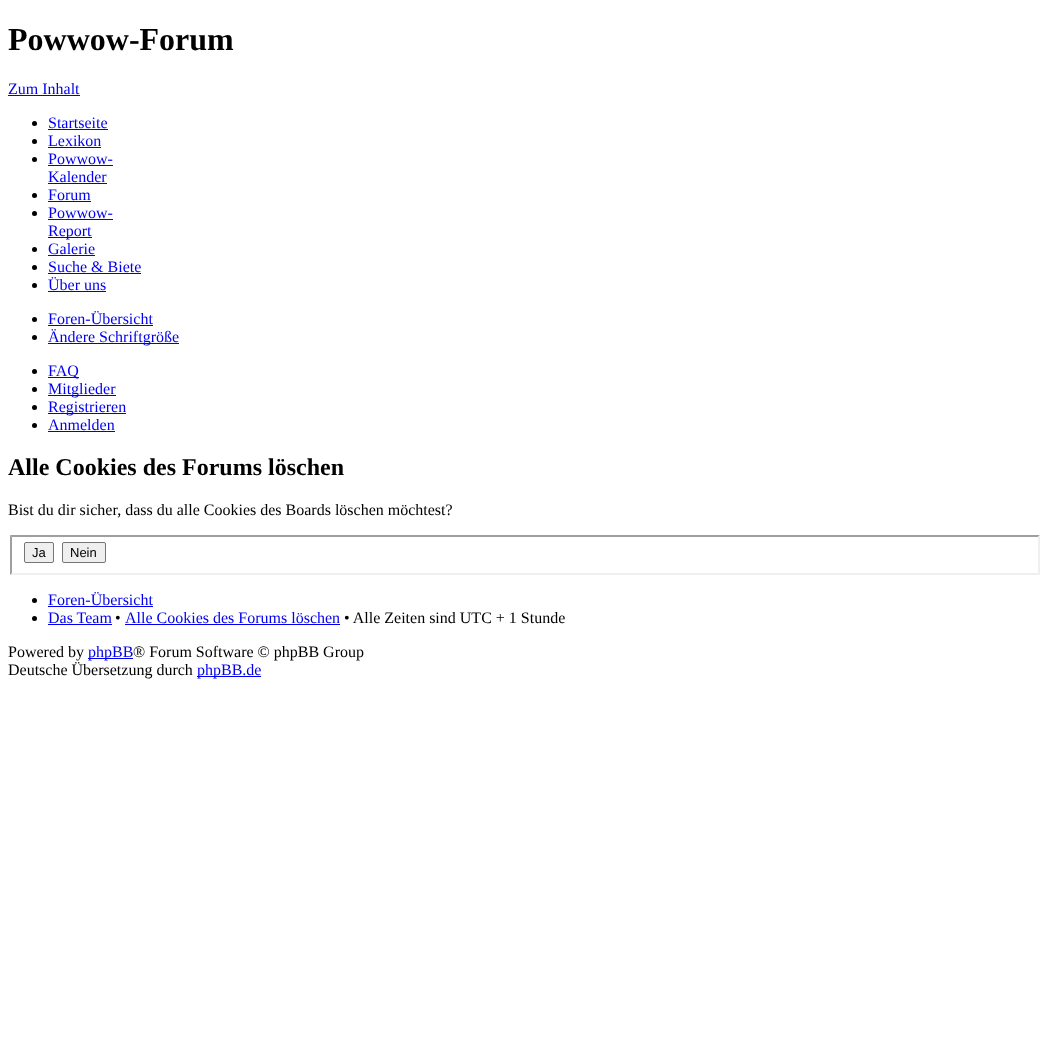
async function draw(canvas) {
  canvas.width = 1050;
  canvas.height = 1047;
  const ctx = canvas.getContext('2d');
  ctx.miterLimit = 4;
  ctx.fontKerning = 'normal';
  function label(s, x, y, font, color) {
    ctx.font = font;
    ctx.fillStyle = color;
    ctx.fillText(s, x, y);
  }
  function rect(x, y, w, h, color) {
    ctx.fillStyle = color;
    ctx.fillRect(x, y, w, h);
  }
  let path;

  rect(0, 0, 1050, 1047, '#fff');
  label('Powwow-Forum', 8, 50, 'bold 32px Liberation Serif', '#000');
  label('Zum Inhalt', 8, 94, '16px Liberation Serif', '#00e');
  rect(8, 95, 72, 1, '#00e');
  ctx.fillStyle = '#000';
  ctx.beginPath();
  ctx.arc(34.5, 123.5, 2.5, 0, 2 * Math.PI);
  ctx.fill();
  label('Startseite', 48, 128, '16px Liberation Serif', '#00e');
  rect(48, 129, 60, 1, '#00e');
  ctx.fillStyle = '#000';
  ctx.beginPath();
  ctx.arc(34.5, 141.5, 2.5, 0, 2 * Math.PI);
  ctx.fill();
  label('Lexikon', 48, 146, '16px Liberation Serif', '#00e');
  rect(48, 147, 53, 1, '#00e');
  ctx.fillStyle = '#000';
  ctx.beginPath();
  ctx.arc(34.5, 159.5, 2.5, 0, 2 * Math.PI);
  ctx.fill();
  label('Powwow-', 48, 164, '16px Liberation Serif', '#00e');
  rect(48, 165, 65, 1, '#00e');
  label('Kalender', 48, 182, '16px Liberation Serif', '#00e');
  rect(48, 183, 59, 1, '#00e');
  ctx.fillStyle = '#000';
  ctx.beginPath();
  ctx.arc(34.5, 195.5, 2.5, 0, 2 * Math.PI);
  ctx.fill();
  label('Forum', 48, 200, '16px Liberation Serif', '#00e');
  rect(48, 201, 43, 1, '#00e');
  ctx.fillStyle = '#000';
  ctx.beginPath();
  ctx.arc(34.5, 213.5, 2.5, 0, 2 * Math.PI);
  ctx.fill();
  label('Powwow-', 48, 218, '16px Liberation Serif', '#00e');
  rect(48, 219, 65, 1, '#00e');
  rect(48, 237, 44, 1, '#00e');
  label('Report', 48, 236, '16px Liberation Serif', '#00e');
  ctx.fillStyle = '#000';
  ctx.beginPath();
  ctx.arc(34.5, 249.5, 2.5, 0, 2 * Math.PI);
  ctx.fill();
  label('Galerie', 48, 254, '16px Liberation Serif', '#00e');
  rect(48, 255, 47, 1, '#00e');
  ctx.fillStyle = '#000';
  ctx.beginPath();
  ctx.arc(34.5, 267.5, 2.5, 0, 2 * Math.PI);
  ctx.fill();
  label('Suche & Biete', 48, 272, '16px Liberation Serif', '#00e');
  rect(48, 273, 93, 1, '#00e');
  ctx.fillStyle = '#000';
  ctx.beginPath();
  ctx.arc(34.5, 285.5, 2.5, 0, 2 * Math.PI);
  ctx.fill();
  label('Über uns', 48, 290, '16px Liberation Serif', '#00e');
  rect(48, 291, 58, 1, '#00e');
  ctx.fillStyle = '#000';
  ctx.beginPath();
  ctx.arc(34.5, 319.5, 2.5, 0, 2 * Math.PI);
  ctx.fill();
  label('Foren-Übersicht', 48, 324, '16px Liberation Serif', '#00e');
  rect(48, 325, 105, 1, '#00e');
  ctx.fillStyle = '#000';
  ctx.beginPath();
  ctx.arc(34.5, 337.5, 2.5, 0, 2 * Math.PI);
  ctx.fill();
  rect(48, 343, 131, 1, '#00e');
  label('Ändere Schriftgröße', 48, 342, '16px Liberation Serif', '#00e');
  ctx.fillStyle = '#000';
  ctx.beginPath();
  ctx.arc(34.5, 371.5, 2.5, 0, 2 * Math.PI);
  ctx.fill();
  rect(48, 377, 31, 1, '#00e');
  label('FAQ', 48, 376, '16px Liberation Serif', '#00e');
  ctx.fillStyle = '#000';
  ctx.beginPath();
  ctx.arc(34.5, 389.5, 2.5, 0, 2 * Math.PI);
  ctx.fill();
  rect(48, 395, 68, 1, '#00e');
  label('Mitglieder', 48, 394, '16px Liberation Serif', '#00e');
  ctx.fillStyle = '#000';
  ctx.beginPath();
  ctx.arc(34.5, 407.5, 2.5, 0, 2 * Math.PI);
  ctx.fill();
  rect(48, 413, 78, 1, '#00e');
  label('Registrieren', 48, 412, '16px Liberation Serif', '#00e');
  ctx.fillStyle = '#000';
  ctx.beginPath();
  ctx.arc(34.5, 425.5, 2.5, 0, 2 * Math.PI);
  ctx.fill();
  label('Anmelden', 48, 430, '16px Liberation Serif', '#00e');
  rect(48, 431, 67, 1, '#00e');
  label('Alle Cookies des Forums löschen', 8, 475, 'bold 24px Liberation Serif', '#000');
  label('Bist du dir sicher, dass du alle Cookies des Boards löschen möchtest?', 8, 515, '16px Liberation Serif', '#000');
  ctx.fillStyle = '#9f9f9f';
  path = new Path2D('M10 535H1040L1038 537H12Z');
  ctx.fill(path);
  ctx.fillStyle = '#efefef';
  path = new Path2D('M1040 535V575L1038 573V537Z');
  ctx.fill(path);
  path = new Path2D('M1040 575H10L12 573H1038Z');
  ctx.fill(path);
  ctx.fillStyle = '#9f9f9f';
  path = new Path2D('M10 575V535L12 537V573Z');
  ctx.fill(path);
  ctx.fillStyle = '#efefef';
  ctx.beginPath();
  ctx.roundRect(24.5, 542.5, 29, 20, 1.5);
  ctx.fill();
  ctx.strokeStyle = '#767676';
  ctx.stroke();
  label('Ja', 32, 557, '13px Liberation Sans', '#000');
  ctx.fillStyle = '#efefef';
  ctx.beginPath();
  ctx.roundRect(62.5, 542.5, 43, 20, 1.5);
  ctx.fill();
  ctx.stroke();
  label('Nein', 70, 557, '13px Liberation Sans', '#000');
  ctx.beginPath();
  ctx.arc(34.5, 600.5, 2.5, 0, 2 * Math.PI);
  ctx.fill();
  label('Foren-Übersicht', 48, 605, '16px Liberation Serif', '#00e');
  rect(48, 606, 105, 1, '#00e');
  ctx.fillStyle = '#000';
  ctx.beginPath();
  ctx.arc(34.5, 618.5, 2.5, 0, 2 * Math.PI);
  ctx.fill();
  label('Das Team', 48, 623, '16px Liberation Serif', '#00e');
  rect(48, 624, 64, 1, '#00e');
  label('•', 115, 623, '16px Liberation Serif', '#000');
  label('Alle Cookies des Forums löschen', 125, 623, '16px Liberation Serif', '#00e');
  rect(125, 624, 215, 1, '#00e');
  label('• Alle Zeiten sind UTC + 1 Stunde', 344, 623, '16px Liberation Serif', '#000');
  label('Powered by', 8, 657, '16px Liberation Serif', '#000');
  rect(88, 658, 45, 1, '#00e');
  label('phpBB', 88, 657, '16px Liberation Serif', '#00e');
  label('® Forum Software © phpBB Group', 133, 657, '16px Liberation Serif', '#000');
  label('Deutsche Übersetzung durch', 8, 675, '16px Liberation Serif', '#000');
  rect(197, 676, 64, 1, '#00e');
  label('phpBB.de', 197, 675, '16px Liberation Serif', '#00e');
}

draw(document.querySelector('canvas'));
